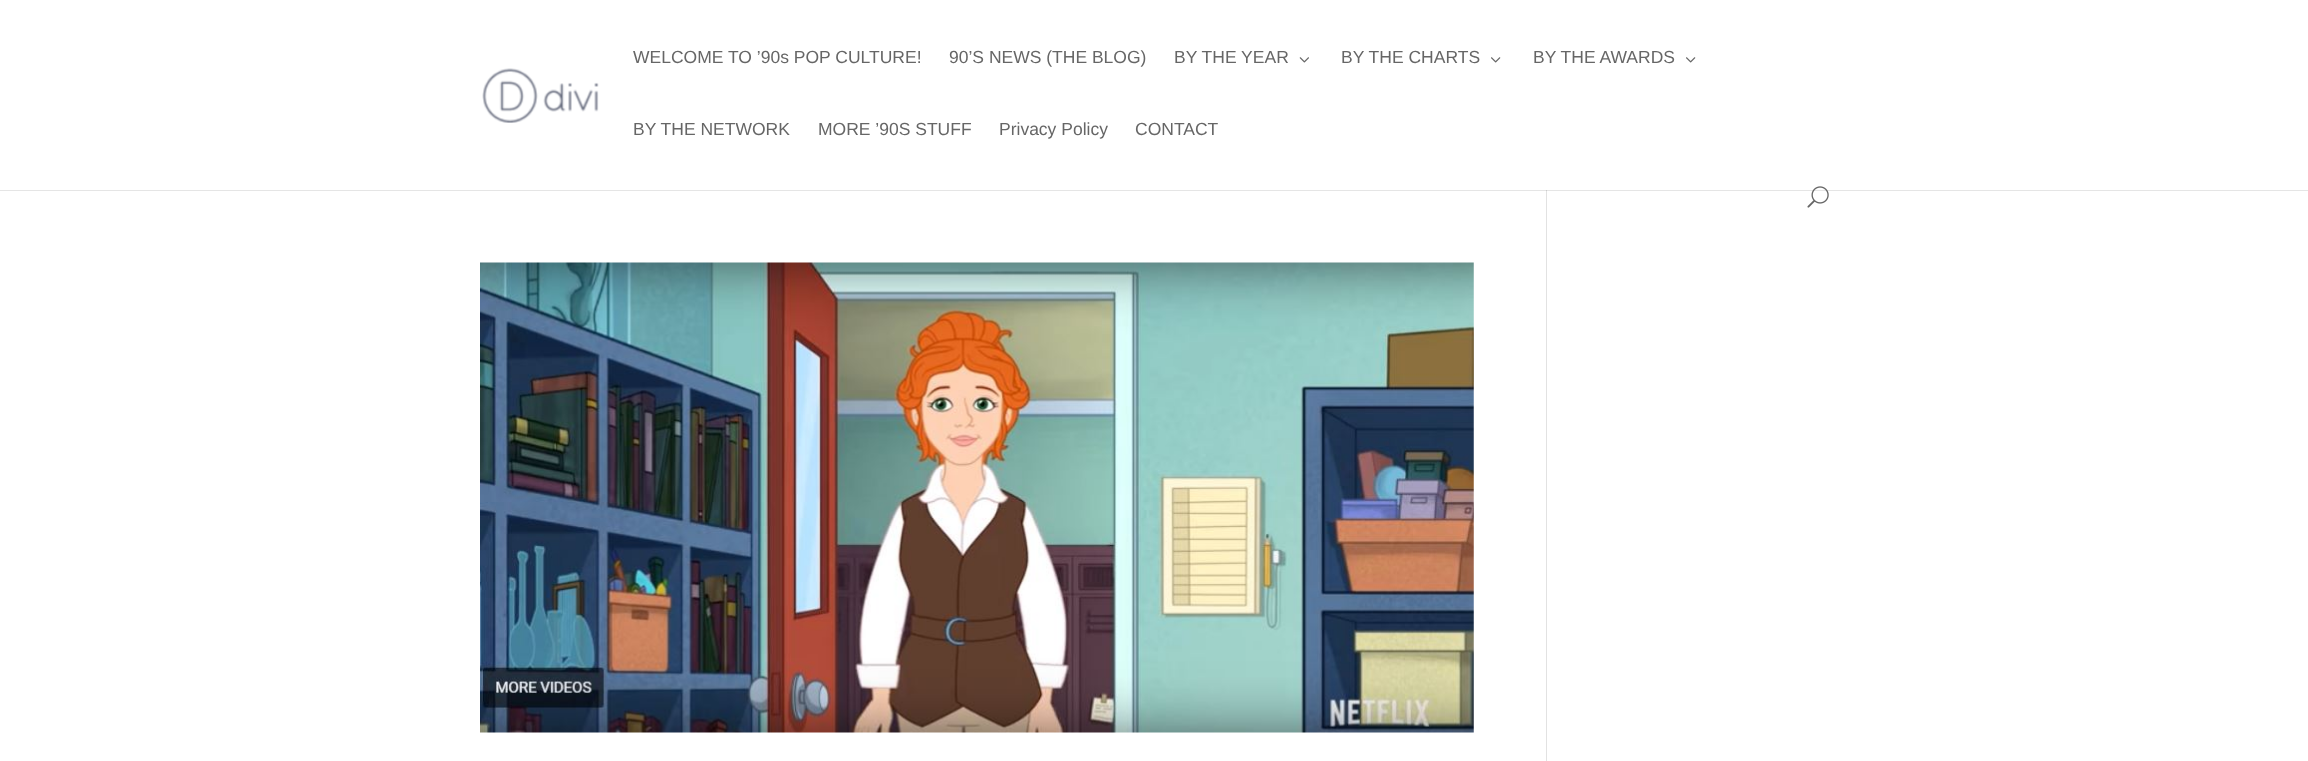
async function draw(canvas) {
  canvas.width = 2308;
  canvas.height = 761;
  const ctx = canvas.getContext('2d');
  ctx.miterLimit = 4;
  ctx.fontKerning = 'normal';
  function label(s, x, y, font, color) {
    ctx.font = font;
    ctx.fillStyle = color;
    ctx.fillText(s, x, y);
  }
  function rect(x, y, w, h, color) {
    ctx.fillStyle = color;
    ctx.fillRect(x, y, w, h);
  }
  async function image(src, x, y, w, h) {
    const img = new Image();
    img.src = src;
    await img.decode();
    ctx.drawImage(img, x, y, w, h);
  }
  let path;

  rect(0, 0, 2308, 761, '#fff');
  rect(1546, 190, 1, 571, '#e2e2e2');
  ctx.fillStyle = '#0000001a';
  path = new Path2D('M0 190V191H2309V1V190Z');
  ctx.fill(path);
  await image('assets/img1.png', 482, 68, 117, 55);
  label('WELCOME TO ’90s POP CULTURE!', 633, 63, '17.5px Liberation Sans', '#666');
  label('90’S NEWS (THE BLOG)', 949, 63, '17.5px Liberation Sans', '#666');
  label('BY THE YEAR', 1174, 63, '17.5px Liberation Sans', '#666');
  await image('assets/img2.png', 1299, 57, 10, 6);
  label('BY THE CHARTS', 1341, 63, '17.5px Liberation Sans', '#666');
  await image('assets/img3.png', 1491, 57, 10, 6);
  label('BY THE AWARDS', 1533, 63, '17.5px Liberation Sans', '#666');
  await image('assets/img3.png', 1686, 57, 10, 6);
  label('BY THE NETWORK', 633, 135, '17.5px Liberation Sans', '#666');
  label('MORE ’90S STUFF', 818, 135, '17.5px Liberation Sans', '#666');
  label('Privacy Policy', 999, 135, '17.5px Liberation Sans', '#666');
  label('CONTACT', 1135, 135, '17.5px Liberation Sans', '#666');
  await image('assets/img4.png', 1807, 186, 22, 22);
  await image('assets/img5.png', 480, 262, 994, 471);
}

draw(document.querySelector('canvas'));
